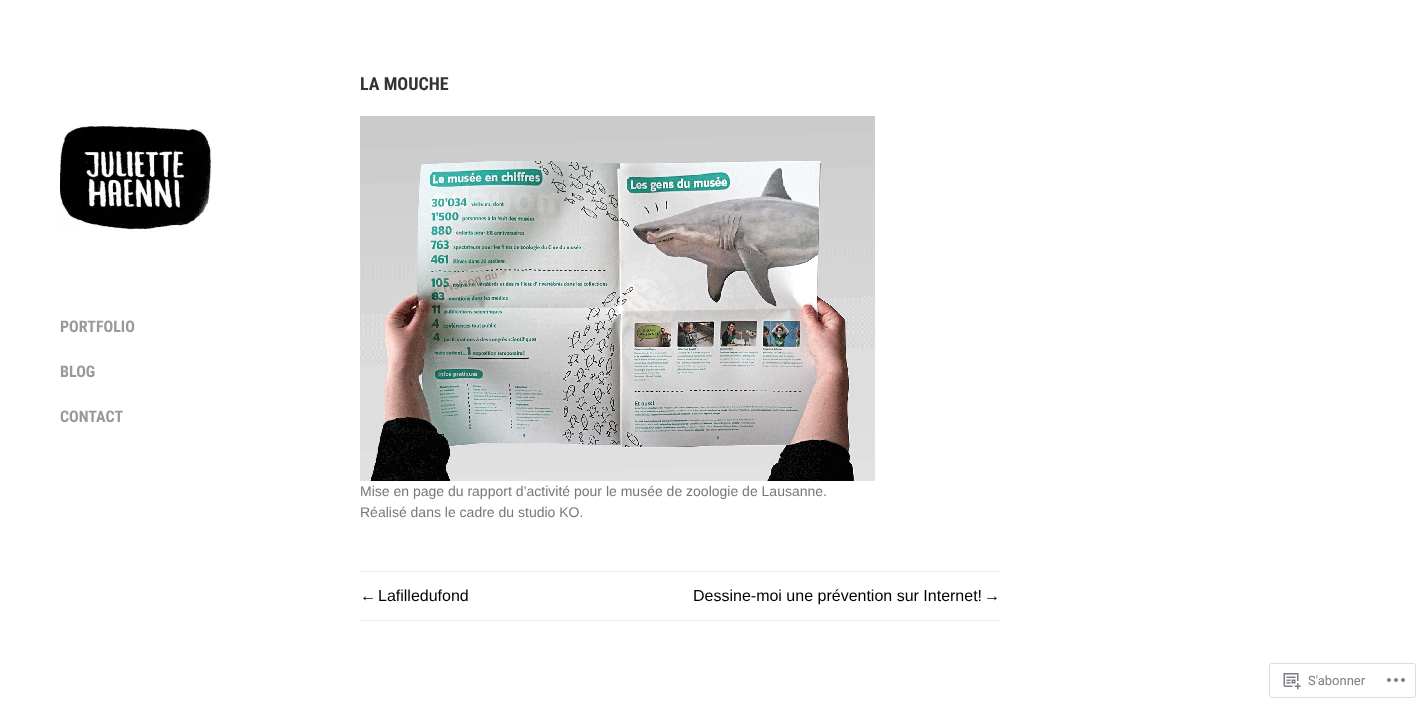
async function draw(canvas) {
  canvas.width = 1426;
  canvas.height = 708;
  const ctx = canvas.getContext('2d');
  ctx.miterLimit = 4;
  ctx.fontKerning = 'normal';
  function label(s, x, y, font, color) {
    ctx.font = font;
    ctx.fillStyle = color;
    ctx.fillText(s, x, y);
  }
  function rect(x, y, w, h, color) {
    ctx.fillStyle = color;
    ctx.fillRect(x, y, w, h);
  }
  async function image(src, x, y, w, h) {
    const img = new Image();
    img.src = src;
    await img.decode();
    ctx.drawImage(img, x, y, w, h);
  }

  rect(0, 0, 1426, 708, '#fff');
  await image('assets/img1.png', 60, 124, 152, 108);
  label('PORTFOLIO', 60, 332, 'bold 16px Roboto Condensed', '#999');
  label('BLOG', 60, 377, 'bold 16px Roboto Condensed', '#999');
  label('CONTACT', 60, 422, 'bold 16px Roboto Condensed', '#999');
  label('LA MOUCHE', 360, 90, 'bold 18px Roboto Condensed', '#333');
  await image('assets/img2.png', 360, 116, 515, 365);
  label('Mise en page du rapport d’activité pour le musée de zoologie de Lausanne.', 360, 496, '14px Arimo', '#777');
  label('Réalisé dans le cadre du studio KO.', 360, 517, '14px Arimo', '#777');
  rect(360, 571, 640, 1, '#eee');
  rect(360, 620, 640, 1, '#eee');
  label('←', 360, 601, '16px Liberation Sans', '#000');
  label('Lafilledufond', 378, 601, '16px Arimo', '#000');
  label('Dessine-moi une prévention sur Internet!', 693, 601, '16px Arimo', '#000');
  label('→', 984, 601, '16px Liberation Sans', '#000');
  ctx.beginPath();
  ctx.roundRect(1269.5, 663.5, 146, 34, 2.5);
  ctx.strokeStyle = '#dddddf';
  ctx.stroke();
  await image('assets/img3.png', 1283, 673, 18, 17);
  label('S\'abonner', 1308, 685, '13px Roboto', '#7b7f85');
  await image('assets/img4.png', 1387, 678, 18, 4);
}

draw(document.querySelector('canvas'));
